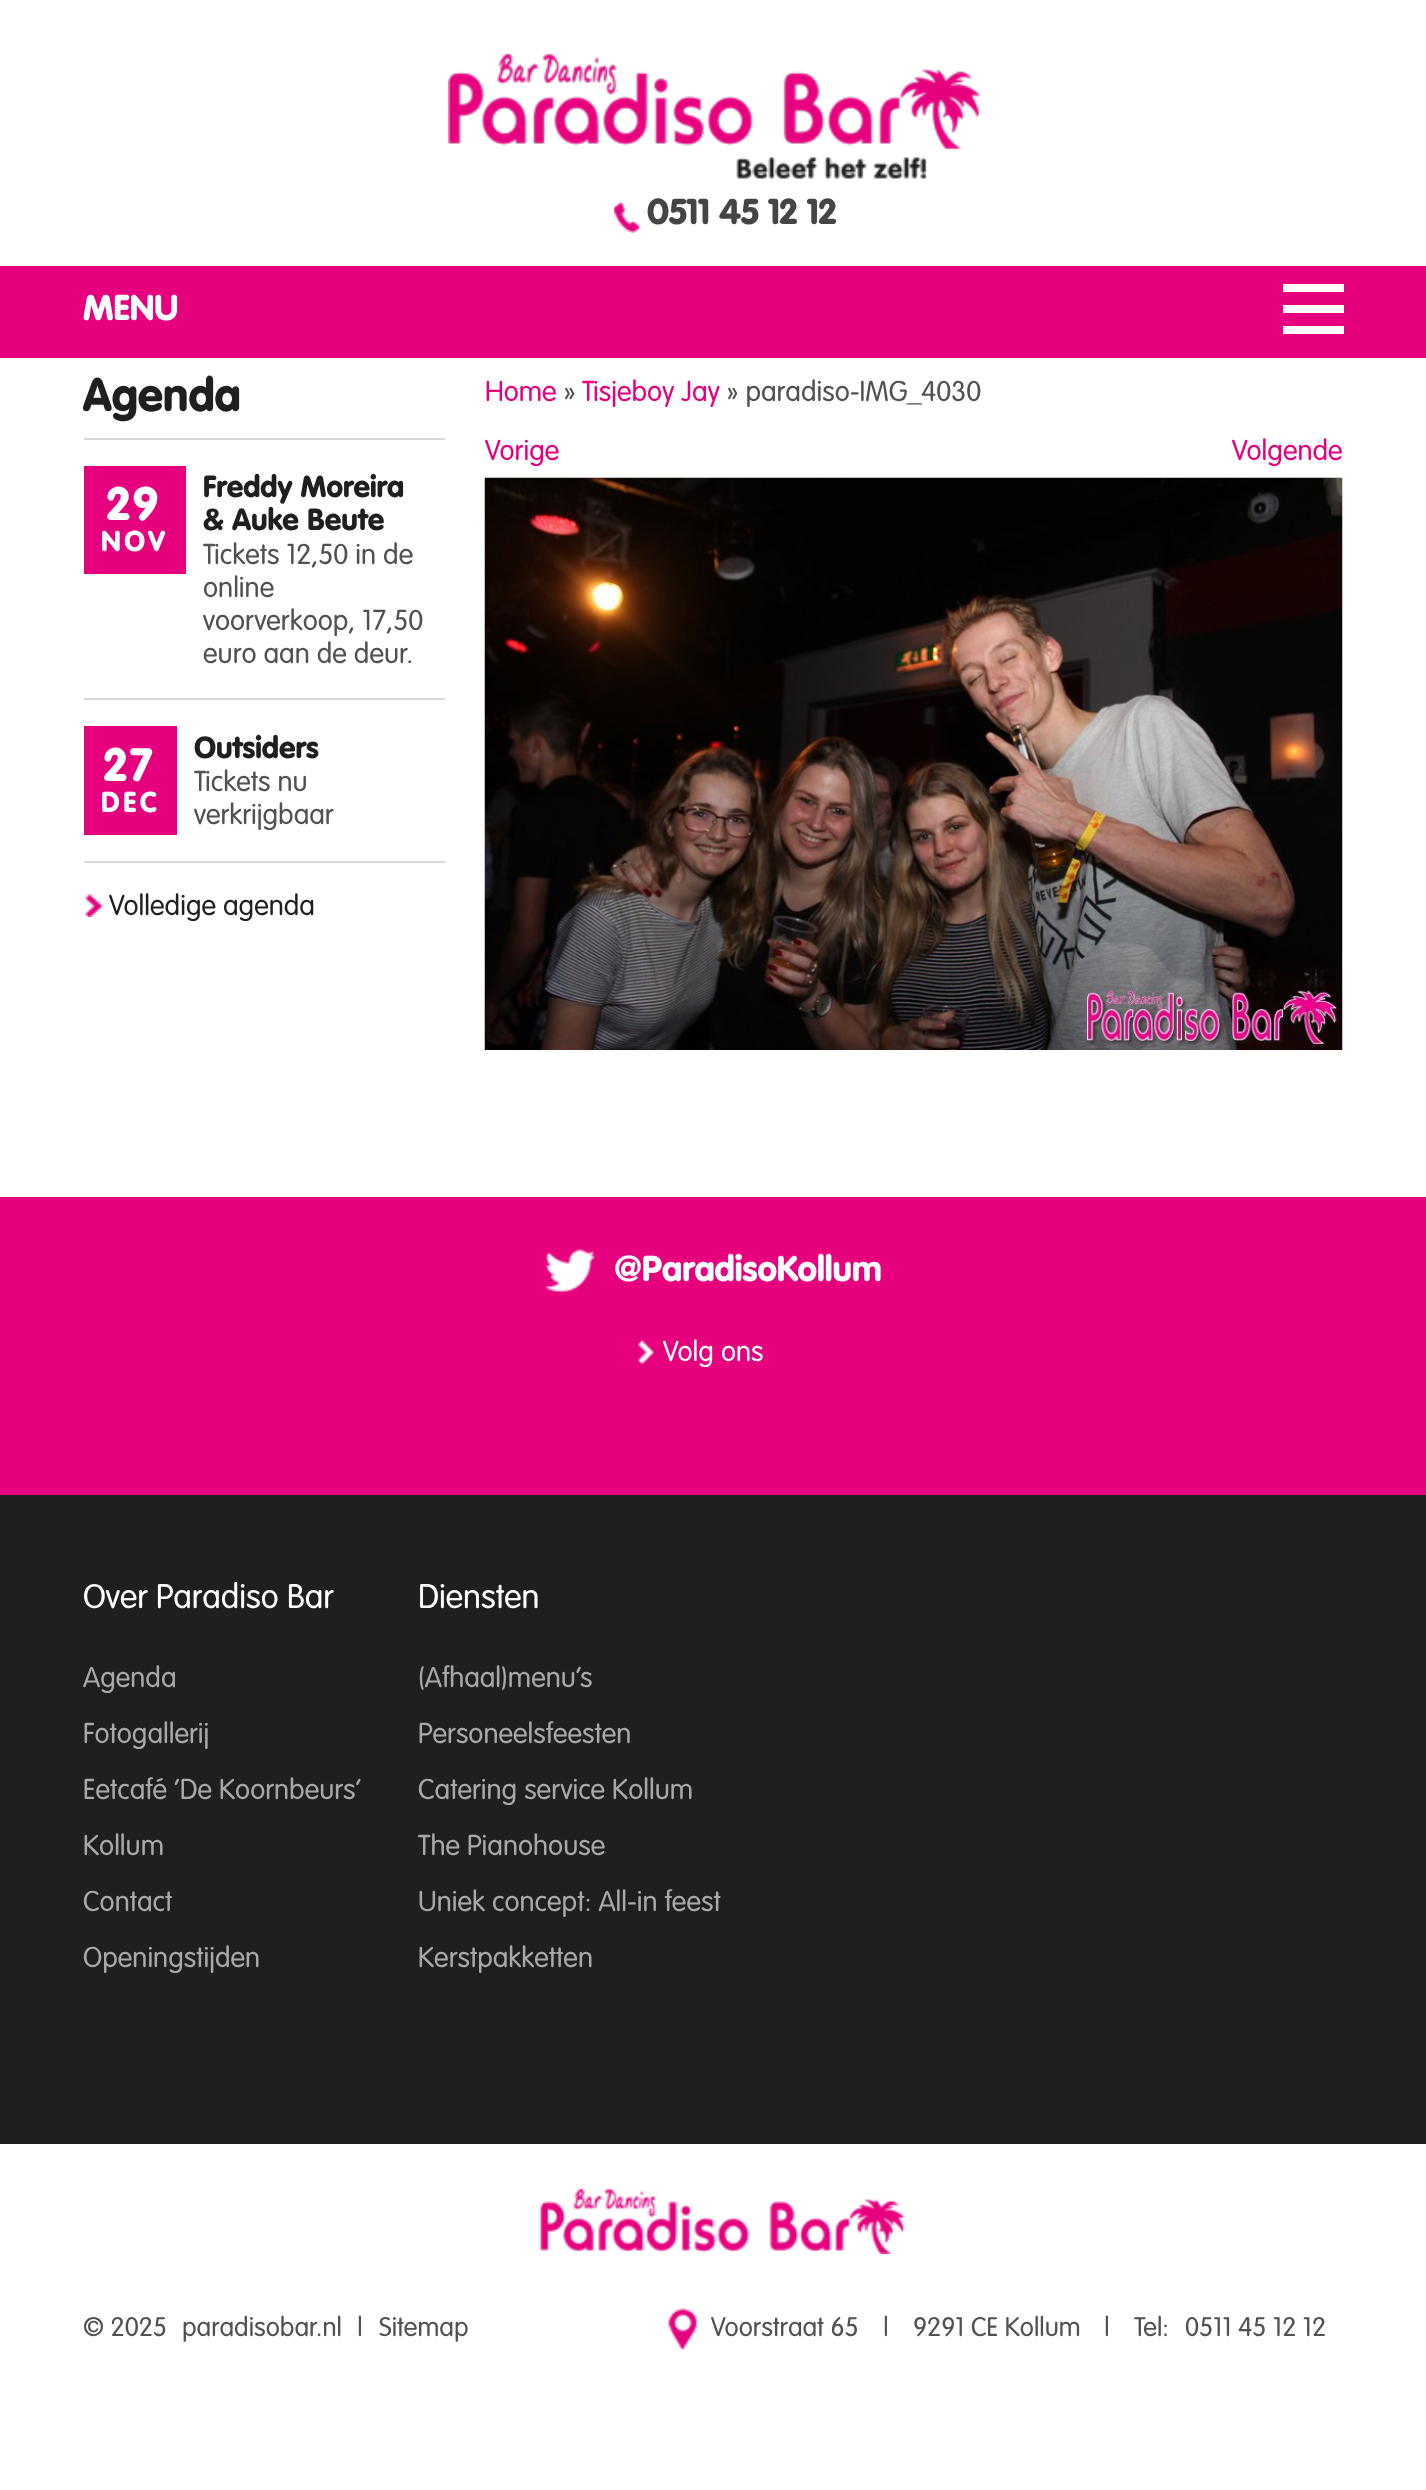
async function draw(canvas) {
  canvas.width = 1426;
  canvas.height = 2490;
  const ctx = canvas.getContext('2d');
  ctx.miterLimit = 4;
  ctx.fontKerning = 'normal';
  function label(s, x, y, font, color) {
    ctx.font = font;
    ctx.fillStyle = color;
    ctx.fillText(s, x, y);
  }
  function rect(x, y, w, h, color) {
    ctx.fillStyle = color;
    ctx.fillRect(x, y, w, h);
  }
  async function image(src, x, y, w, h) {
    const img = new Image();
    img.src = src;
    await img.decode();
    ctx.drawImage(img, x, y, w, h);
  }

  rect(0, 0, 1426, 2490, '#fff');
  await image('assets/img1.png', 614, 201, 27, 32);
  label('0511 45 12 12', 647, 224, '900 35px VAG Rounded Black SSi', '#454545');
  await image('assets/img2.png', 448, 52, 532, 127);
  rect(0, 266, 1426, 92, '#e6007e');
  label('MENU', 83, 320, '900 35px VAG Rounded Black SSi', '#fff');
  rect(1283, 284, 61, 8, '#fff');
  rect(1283, 305, 61, 8, '#fff');
  rect(1283, 326, 61, 8, '#fff');
  rect(84, 438, 361, 2, '#dbd6d8');
  label('Agenda', 83, 411, '900 45.5px VAG Rounded Black SSi', '#201e1f');
  rect(84, 698, 361, 2, '#dbd6d8');
  rect(84, 466, 102, 108, '#e6007e');
  ctx.letterSpacing = '3.5px';
  label('29', 107, 520, '900 45.5px VAG Rounded Black SSi', '#fff');
  label('NOV', 101, 551, '900 28px VAG Rounded Black SSi', '#fff');
  ctx.letterSpacing = '0px';
  label('Freddy Moreira', 203, 497, '900 29.75px VAG Rounded Black SSi', '#201e1f');
  label('& Auke Beute', 203, 530, '900 29.75px VAG Rounded Black SSi', '#201e1f');
  label('Tickets 12,50 in de', 203, 564, '300 28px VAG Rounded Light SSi', '#525051');
  label('online', 203, 597, '300 28px VAG Rounded Light SSi', '#525051');
  label('voorverkoop, 17,50', 203, 630, '300 28px VAG Rounded Light SSi', '#525051');
  label('euro aan de deur.', 203, 663, '300 28px VAG Rounded Light SSi', '#525051');
  rect(84, 861, 361, 2, '#dbd6d8');
  rect(84, 726, 93, 109, '#e6007e');
  ctx.letterSpacing = '3.5px';
  label('27', 104, 781, '900 45.5px VAG Rounded Black SSi', '#fff');
  label('DEC', 101, 812, '900 28px VAG Rounded Black SSi', '#fff');
  ctx.letterSpacing = '0px';
  label('Outsiders', 194, 758, '900 29.75px VAG Rounded Black SSi', '#201e1f');
  label('Tickets nu', 194, 791, '300 28px VAG Rounded Light SSi', '#525051');
  label('verkrijgbaar', 194, 824, '300 28px VAG Rounded Light SSi', '#525051');
  await image('assets/img3.png', 84, 894, 20, 23);
  label('Volledige agenda', 109, 915, '300 28px VAG Rounded Light SSi', '#201e1f');
  label('Home', 485, 401, '300 28px VAG Rounded Light SSi', '#e6007e');
  label('»', 564, 401, '300 28px VAG Rounded Light SSi', '#525051');
  label('Tisjeboy Jay', 582, 401, '300 28px VAG Rounded Light SSi', '#e6007e');
  label('» paradiso-IMG_4030', 727, 401, '300 28px VAG Rounded Light SSi', '#525051');
  label('Vorige', 485, 460, '300 28px VAG Rounded Light SSi', '#e6007e');
  label('Volgende', 1232, 460, '300 28px VAG Rounded Light SSi', '#e6007e');
  await image('assets/img4.png', 484, 477, 859, 573);
  rect(0, 1197, 1426, 298, '#e6007e');
  await image('assets/img5.png', 545, 1249, 50, 43);
  label('@ParadisoKollum', 614, 1281, '900 35px VAG Rounded Black SSi', '#fff');
  await image('assets/img6.png', 637, 1340, 18, 24);
  label('Volg ons', 663, 1361, '300 28px VAG Rounded Light SSi', '#fff');
  rect(0, 1495, 1426, 649, '#201e1f');
  label('Over Paradiso Bar', 83, 1608, '300 33.25px VAG Rounded Light SSi', '#fff');
  label('Agenda', 83, 1687, '300 28px VAG Rounded Light SSi', '#aaa7a8');
  label('Fotogallerij', 83, 1743, '300 28px VAG Rounded Light SSi', '#aaa7a8');
  label('Eetcafé ‘De Koornbeurs’', 83, 1799, '300 28px VAG Rounded Light SSi', '#aaa7a8');
  label('Kollum', 83, 1855, '300 28px VAG Rounded Light SSi', '#aaa7a8');
  label('Contact', 83, 1911, '300 28px VAG Rounded Light SSi', '#aaa7a8');
  label('Openingstijden', 83, 1967, '300 28px VAG Rounded Light SSi', '#aaa7a8');
  label('Diensten', 418, 1608, '300 33.25px VAG Rounded Light SSi', '#fff');
  label('(Afhaal)menu’s', 418, 1687, '300 28px VAG Rounded Light SSi', '#aaa7a8');
  label('Personeelsfeesten', 418, 1743, '300 28px VAG Rounded Light SSi', '#aaa7a8');
  label('Catering service Kollum', 418, 1799, '300 28px VAG Rounded Light SSi', '#aaa7a8');
  label('The Pianohouse', 418, 1855, '300 28px VAG Rounded Light SSi', '#aaa7a8');
  label('Uniek concept: All-in feest', 418, 1911, '300 28px VAG Rounded Light SSi', '#aaa7a8');
  label('Kerstpakketten', 418, 1967, '300 28px VAG Rounded Light SSi', '#aaa7a8');
  await image('assets/img7.png', 539, 2187, 366, 67);
  label('© 2025', 83, 2336, '300 26.25px VAG Rounded Light SSi', '#525051');
  label('paradisobar.nl', 182, 2336, '300 26.25px VAG Rounded Light SSi', '#525051');
  label('|', 357, 2336, '300 26.25px VAG Rounded Light SSi', '#525051');
  label('Sitemap', 379, 2336, '300 26.25px VAG Rounded Light SSi', '#525051');
  await image('assets/img8.png', 668, 2308, 29, 43);
  label('Voorstraat 65', 711, 2336, '300 26.25px VAG Rounded Light SSi', '#525051');
  label('|', 883, 2336, '300 26.25px VAG Rounded Light SSi', '#525051');
  label('9291 CE Kollum', 913, 2336, '300 26.25px VAG Rounded Light SSi', '#525051');
  label('|', 1104, 2336, '300 26.25px VAG Rounded Light SSi', '#525051');
  label('Tel:', 1134, 2336, '300 26.25px VAG Rounded Light SSi', '#525051');
  label('0511 45 12 12', 1185, 2336, '300 26.25px VAG Rounded Light SSi', '#525051');
}

draw(document.querySelector('canvas'));
